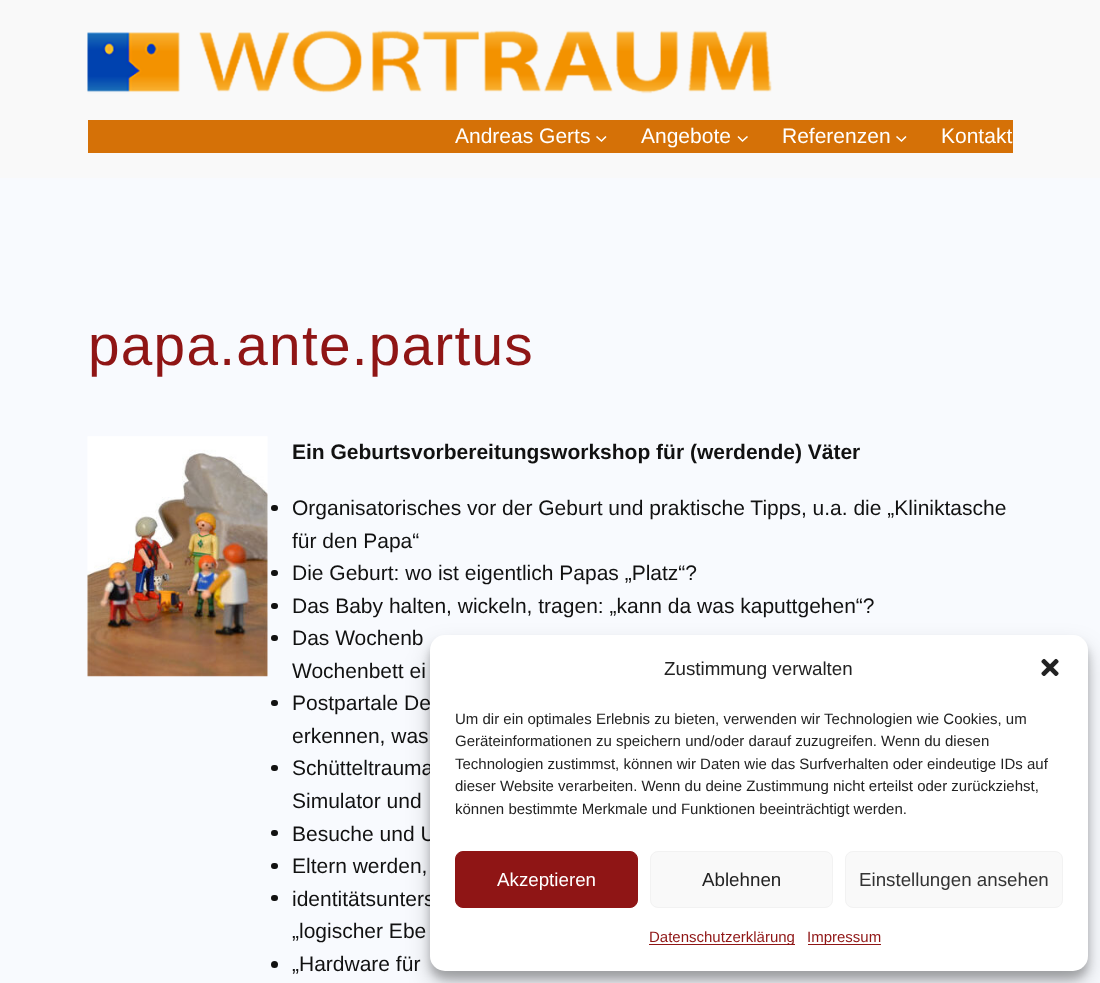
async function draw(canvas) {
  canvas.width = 1100;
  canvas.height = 983;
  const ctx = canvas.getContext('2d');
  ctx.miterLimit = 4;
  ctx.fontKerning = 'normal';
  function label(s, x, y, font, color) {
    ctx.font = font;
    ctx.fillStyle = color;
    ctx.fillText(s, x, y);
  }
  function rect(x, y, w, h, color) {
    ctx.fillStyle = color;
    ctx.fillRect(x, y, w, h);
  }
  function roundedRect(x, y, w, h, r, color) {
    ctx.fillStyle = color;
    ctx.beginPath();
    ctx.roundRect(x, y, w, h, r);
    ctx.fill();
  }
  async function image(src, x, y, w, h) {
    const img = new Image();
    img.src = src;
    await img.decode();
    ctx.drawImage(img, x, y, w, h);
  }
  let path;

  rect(0, 0, 1100, 983, '#f8fafe');
  rect(0, 0, 1100, 178, '#f9f9f9');
  await image('assets/img1.png', 87, 30, 685, 64);
  rect(88, 120, 925, 33, '#d57107');
  label('Andreas Gerts', 455, 143, '21px Liberation Sans', '#fff');
  path = new Path2D('M596.5 136.5L601.5 141L606 136.5');
  ctx.strokeStyle = '#fff';
  ctx.lineWidth = 1.6;
  ctx.stroke(path);
  label('Angebote', 641, 143, '21px Liberation Sans', '#fff');
  path = new Path2D('M738 136.5L742.5 141L747.5 136.5');
  ctx.stroke(path);
  label('Referenzen', 782, 143, '21px Liberation Sans', '#fff');
  path = new Path2D('M896.5 136.5L901.5 141L906 136.5');
  ctx.stroke(path);
  label('Kontakt', 941, 143, '21px Liberation Sans', '#fff');
  ctx.letterSpacing = '1.25px';
  label('papa.ante.partus', 88, 365, '56.75px Liberation Sans', '#8f1515');
  await image('assets/img2.png', 87, 436, 181, 241);
  ctx.letterSpacing = '0px';
  label('Ein Geburtsvorbereitungsworkshop für (werdende) Väter', 292, 459, 'bold 21px Liberation Sans', '#111');
  roundedRect(271, 505, 7, 6, 3, '#111');
  label('Organisatorisches vor der Geburt und praktische Tipps, u.a. die „Kliniktasche', 292, 515, '21px Liberation Sans', '#111');
  label('für den Papa“', 292, 548, '21px Liberation Sans', '#111');
  roundedRect(271, 570, 7, 6, 3, '#111');
  label('Die Geburt: wo ist eigentlich Papas „Platz“?', 292, 580, '21px Liberation Sans', '#111');
  roundedRect(271, 603, 7, 6, 3, '#111');
  label('Das Baby halten, wickeln, tragen: „kann da was kaputtgehen“?', 292, 613, '21px Liberation Sans', '#111');
  roundedRect(271, 635, 7, 6, 3, '#111');
  label('Das Wochenb', 292, 645, '21px Liberation Sans', '#111');
  label('Wochenbett ei', 292, 678, '21px Liberation Sans', '#111');
  roundedRect(271, 700, 7, 6, 3, '#111');
  label('Postpartale De', 292, 710, '21px Liberation Sans', '#111');
  label('erkennen, was', 292, 743, '21px Liberation Sans', '#111');
  roundedRect(271, 765, 7, 6, 3, '#111');
  label('Schütteltrauma', 292, 775, '21px Liberation Sans', '#111');
  label('Simulator und', 292, 808, '21px Liberation Sans', '#111');
  roundedRect(271, 830, 7, 6, 3, '#111');
  label('Besuche und U', 292, 841, '21px Liberation Sans', '#111');
  roundedRect(271, 863, 7, 6, 3, '#111');
  label('Eltern werden,', 292, 873, '21px Liberation Sans', '#111');
  roundedRect(271, 895, 7, 6, 3, '#111');
  label('identitätsunters', 292, 906, '21px Liberation Sans', '#111');
  label('„logischer Ebe', 292, 938, '21px Liberation Sans', '#111');
  ctx.beginPath();
  ctx.arc(274.5, 964.5, 3.5, 0, 2 * Math.PI);
  ctx.fill();
  label('„Hardware für', 292, 971, '21px Liberation Sans', '#111');
  ctx.fillStyle = '#0000003b';
  ctx.filter = 'blur(4px)';
  ctx.beginPath();
  ctx.roundRect(430, 643, 658, 336, 15);
  ctx.fill();
  ctx.filter = 'none';
  ctx.fillStyle = '#00000030';
  ctx.filter = 'blur(12.5px)';
  ctx.beginPath();
  ctx.roundRect(430, 648, 658, 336, 15);
  ctx.fill();
  ctx.filter = 'none';
  roundedRect(430, 635, 658, 336, 15, '#fff');
  label('Zustimmung verwalten', 664, 675, '18.75px Liberation Sans', '#222');
  await image('assets/img3.png', 1041, 658, 18, 18);
  label('Um dir ein optimales Erlebnis zu bieten, verwenden wir Technologien wie Cookies, um', 455, 724, '15px Liberation Sans', '#222');
  label('Geräteinformationen zu speichern und/oder darauf zuzugreifen. Wenn du diesen', 455, 746, '15px Liberation Sans', '#222');
  label('Technologien zustimmst, können wir Daten wie das Surfverhalten oder eindeutige IDs auf', 455, 769, '15px Liberation Sans', '#222');
  label('dieser Website verarbeiten. Wenn du deine Zustimmung nicht erteilst oder zurückziehst,', 455, 791, '15px Liberation Sans', '#222');
  label('können bestimmte Merkmale und Funktionen beeinträchtigt werden.', 455, 814, '15px Liberation Sans', '#222');
  ctx.fillStyle = '#8f1515';
  ctx.beginPath();
  ctx.roundRect(455.5, 851.5, 182, 56, 7.5);
  ctx.fill();
  ctx.strokeStyle = '#8f1515';
  ctx.lineWidth = 1;
  ctx.stroke();
  label('Akzeptieren', 497, 886, '18.75px Liberation Sans', '#fff');
  ctx.fillStyle = '#f9f9f9';
  ctx.beginPath();
  ctx.roundRect(650.5, 851.5, 182, 56, 7.5);
  ctx.fill();
  ctx.strokeStyle = '#f2f2f2';
  ctx.stroke();
  label('Ablehnen', 702, 886, '18.75px Liberation Sans', '#222');
  ctx.fillStyle = '#f9f9f9';
  ctx.beginPath();
  ctx.roundRect(845.5, 851.5, 217, 56, 7.5);
  ctx.fill();
  ctx.stroke();
  label('Einstellungen ansehen', 859, 886, '18.75px Liberation Sans', '#333');
  rect(649, 944, 146, 1, '#8f1515');
  label('Datenschutzerklärung', 649, 942, '15px Liberation Sans', '#8f1515');
  rect(808, 944, 73, 1, '#8f1515');
  label('Impressum', 807, 942, '15px Liberation Sans', '#8f1515');
}

draw(document.querySelector('canvas'));
